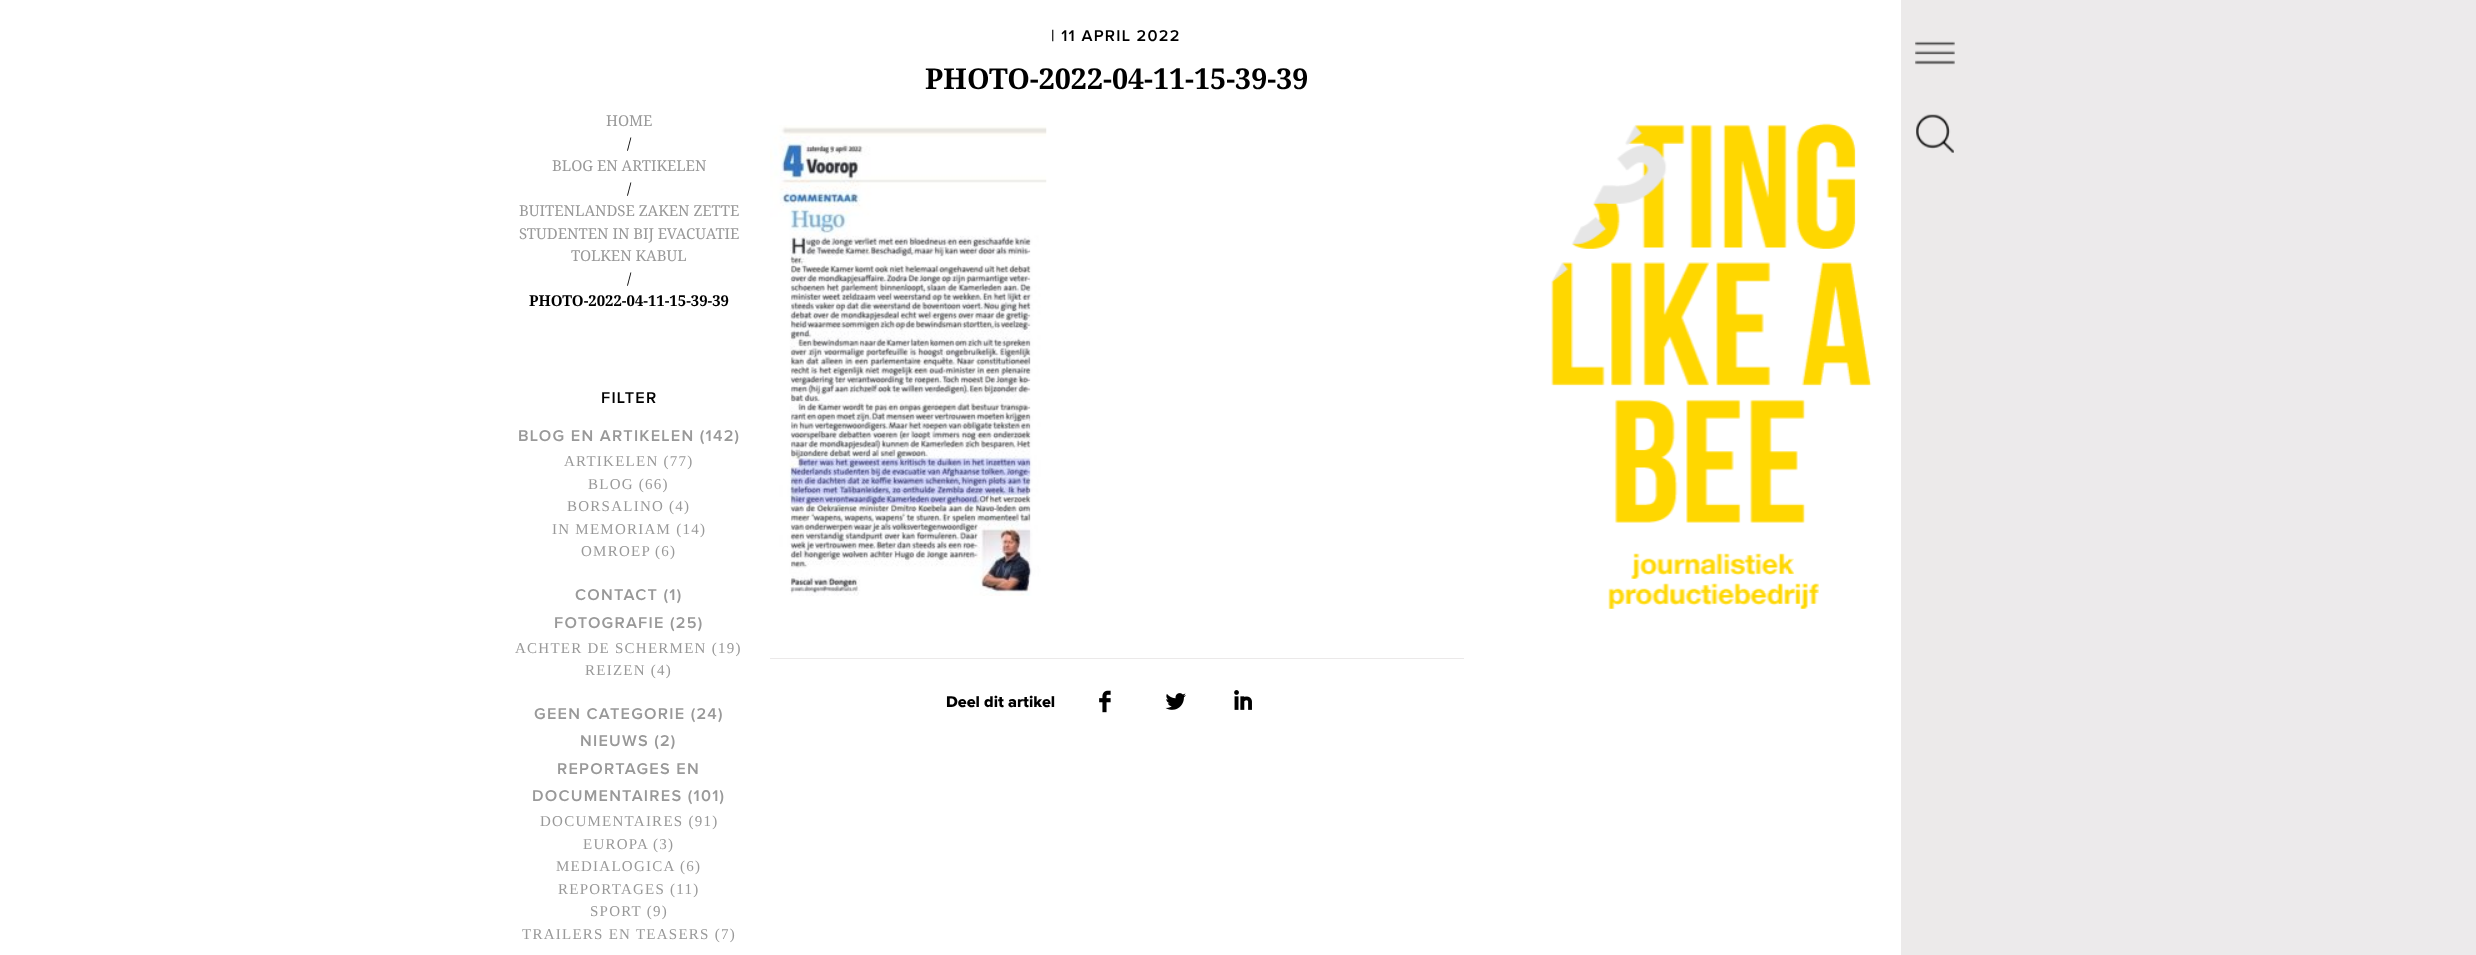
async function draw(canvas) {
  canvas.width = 2476;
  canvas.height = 955;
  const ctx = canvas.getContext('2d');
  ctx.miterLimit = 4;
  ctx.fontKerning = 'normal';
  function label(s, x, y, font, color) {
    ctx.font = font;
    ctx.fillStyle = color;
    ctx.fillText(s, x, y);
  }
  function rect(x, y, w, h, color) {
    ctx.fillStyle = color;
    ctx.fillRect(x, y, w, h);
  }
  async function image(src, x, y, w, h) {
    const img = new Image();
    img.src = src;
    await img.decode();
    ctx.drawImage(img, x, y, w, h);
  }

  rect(0, 0, 2476, 955, '#fff');
  await image('assets/img1.png', 1970, 0, 506, 955);
  label('HOME', 606, 126, '15px Droid Serif', '#999');
  label('/', 627, 149, '15px Droid Serif', '#000');
  label('BLOG EN ARTIKELEN', 552, 171, '15px Droid Serif', '#999');
  label('/', 627, 194, '15px Droid Serif', '#000');
  label('BUITENLANDSE ZAKEN ZETTE', 519, 216, '15px Droid Serif', '#999');
  label('STUDENTEN IN BIJ EVACUATIE', 519, 239, '15px Droid Serif', '#999');
  label('TOLKEN KABUL', 571, 261, '15px Droid Serif', '#999');
  label('/', 627, 284, '15px Droid Serif', '#000');
  label('PHOTO-2022-04-11-15-39-39', 529, 306, 'bold 15px Droid Serif', '#000');
  ctx.letterSpacing = '1.25px';
  label('FILTER', 601, 403, '600 16.25px Proxima Nova', '#000');
  label('BLOG EN ARTIKELEN (142)', 518, 441, '600 16.25px Proxima Nova', '#999');
  label('ARTIKELEN (77)', 564, 466, '15px Liberation Serif', '#999');
  label('BLOG (66)', 588, 489, '15px Liberation Serif', '#999');
  label('BORSALINO (4)', 567, 511, '15px Liberation Serif', '#999');
  label('IN MEMORIAM (14)', 552, 534, '15px Liberation Serif', '#999');
  label('OMROEP', 581, 556, '15px Liberation Serif', '#999');
  label('(6)', 655, 556, '15px Liberation Serif', '#999');
  label('CONTACT (1)', 575, 600, '600 16.25px Proxima Nova', '#999');
  label('FOTOGRAFIE (25)', 554, 628, '600 16.25px Proxima Nova', '#999');
  label('ACHTER DE SCHERMEN (19)', 515, 653, '15px Liberation Serif', '#999');
  label('REIZEN (4)', 585, 675, '15px Liberation Serif', '#999');
  label('GEEN CATEGORIE (24)', 534, 719, '600 16.25px Proxima Nova', '#999');
  label('NIEUWS (2)', 580, 746, '600 16.25px Proxima Nova', '#999');
  label('REPORTAGES EN', 557, 774, '600 16.25px Proxima Nova', '#999');
  label('DOCUMENTAIRES (101)', 532, 801, '600 16.25px Proxima Nova', '#999');
  label('DOCUMENTAIRES (91)', 540, 826, '15px Liberation Serif', '#999');
  label('EUROPA', 583, 849, '15px Liberation Serif', '#999');
  label('(3)', 653, 849, '15px Liberation Serif', '#999');
  label('MEDIALOGICA', 556, 871, '15px Liberation Serif', '#999');
  label('(6)', 680, 871, '15px Liberation Serif', '#999');
  label('REPORTAGES (11)', 558, 894, '15px Liberation Serif', '#999');
  label('SPORT (9)', 590, 916, '15px Liberation Serif', '#999');
  label('TRAILERS EN TEASERS (7)', 522, 939, '15px Liberation Serif', '#999');
  rect(770, 658, 694, 1, '#ebe9e9');
  label('| 11 APRIL 2022', 1051, 41, '600 16.25px Proxima Nova', '#000');
  ctx.letterSpacing = '0px';
  label('PHOTO-2022-04-11-15-39-39', 925, 89, 'bold 28.75px Droid Serif', '#000');
  await image('assets/img2.png', 770, 125, 277, 471);
  label('Deel dit artikel', 946, 707, '800 16.25px Proxima Nova', '#000');
  await image('assets/img3.png', 1099, 690, 12, 23);
  await image('assets/img4.png', 1165, 693, 21, 17);
  await image('assets/img5.png', 1234, 690, 18, 20);
  await image('assets/img6.png', 1551, 123, 321, 486);
  rect(1901, 0, 69, 955, '#eceaea');
  await image('assets/img7.png', 1915, 41, 40, 24);
  await image('assets/img8.png', 1916, 114, 38, 39);
}

draw(document.querySelector('canvas'));
